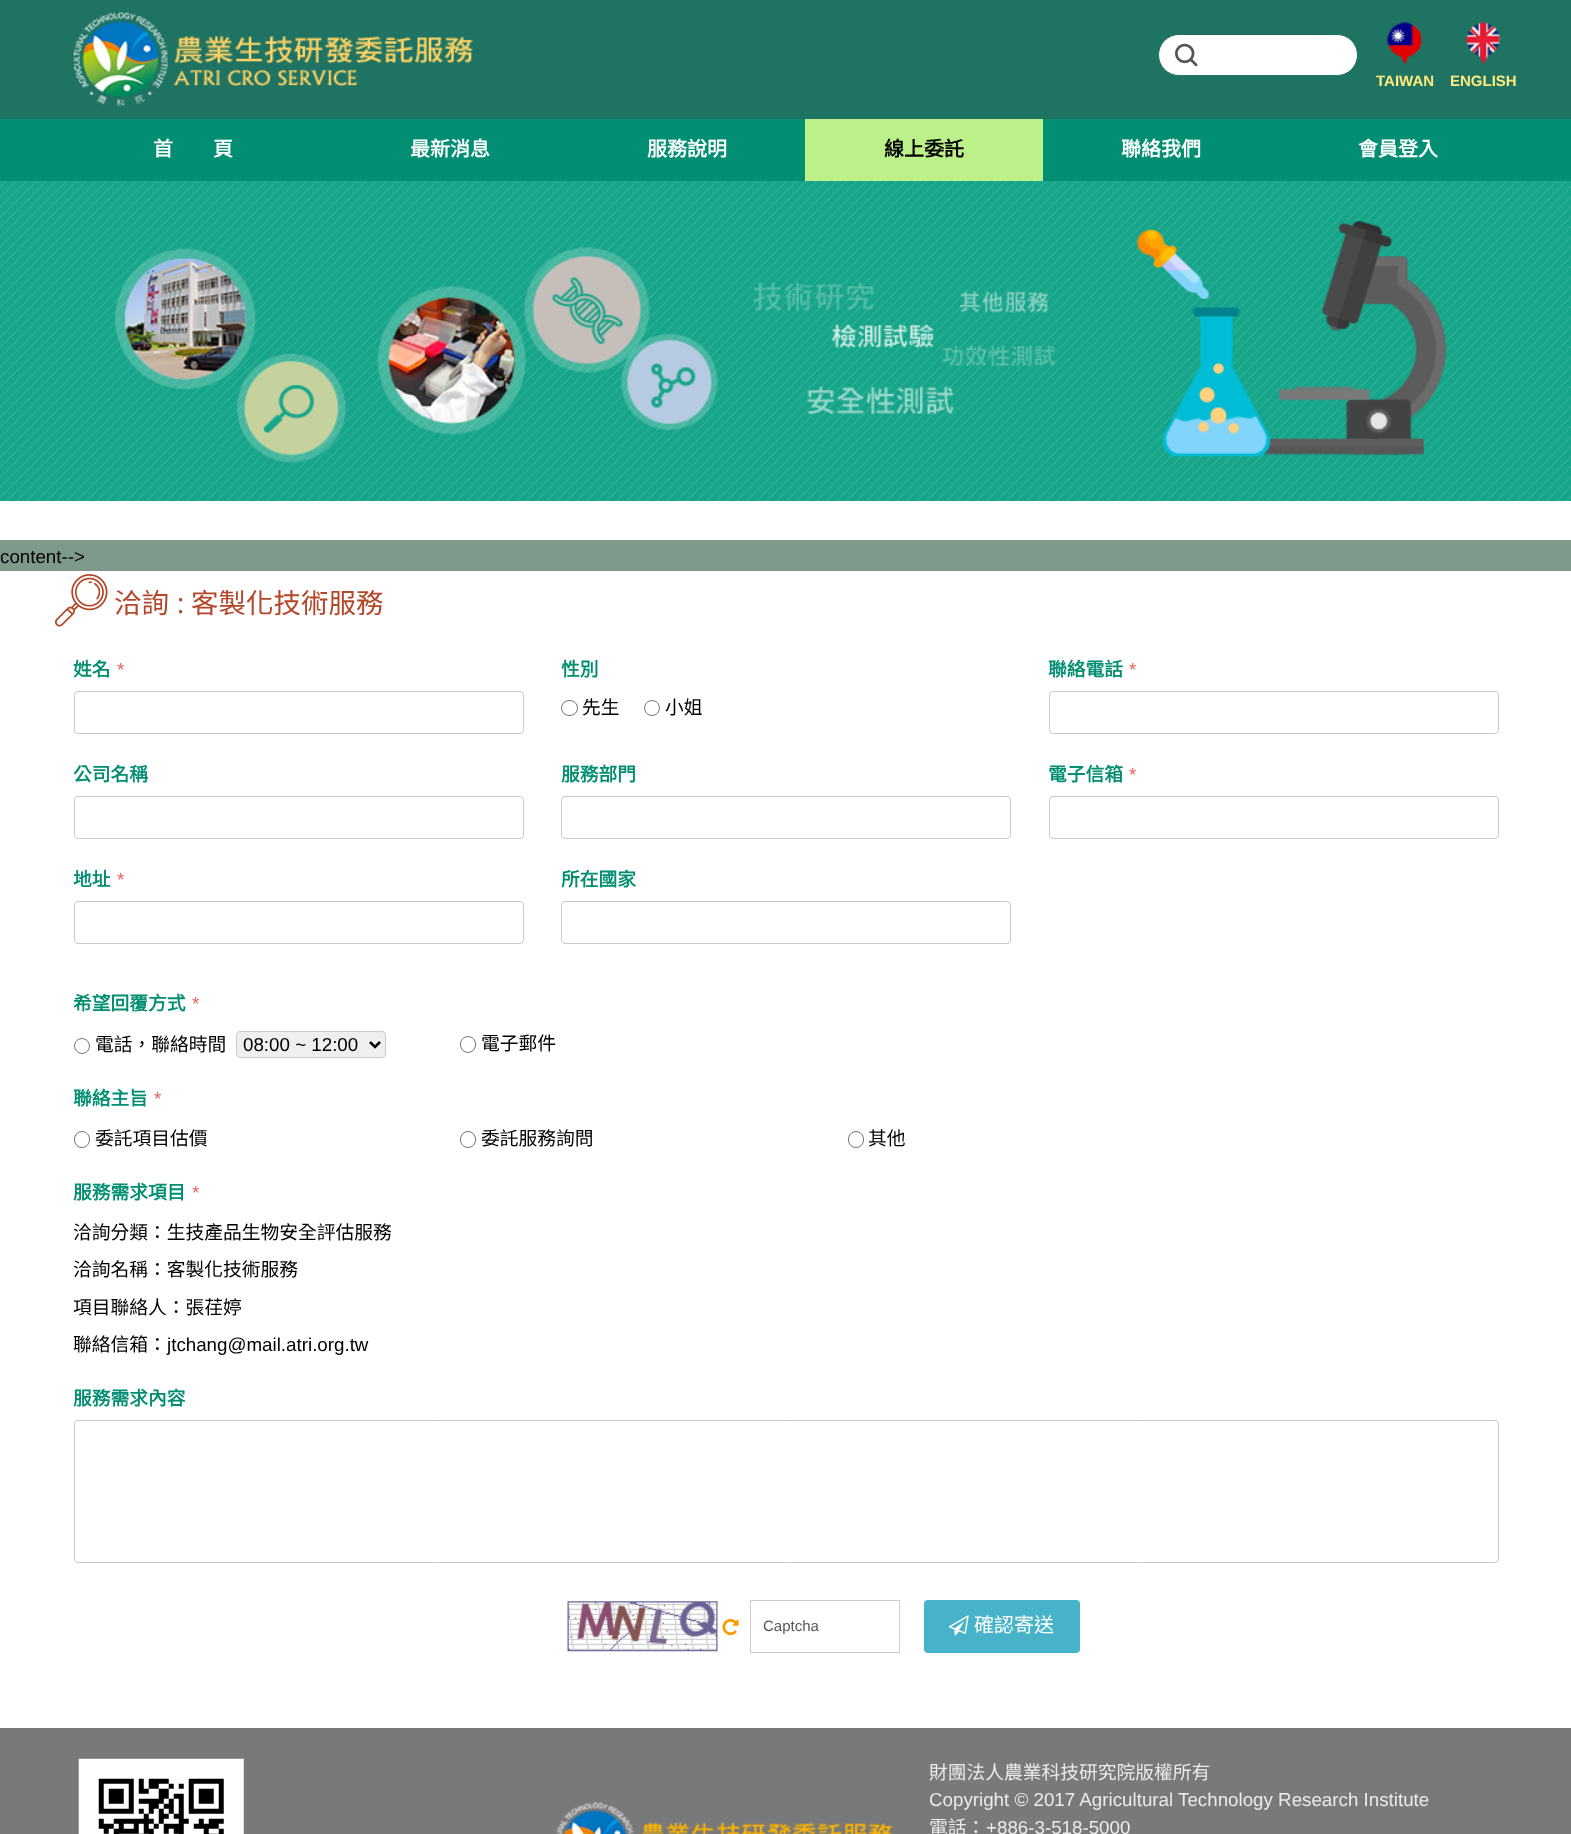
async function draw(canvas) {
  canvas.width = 1571;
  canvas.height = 1834;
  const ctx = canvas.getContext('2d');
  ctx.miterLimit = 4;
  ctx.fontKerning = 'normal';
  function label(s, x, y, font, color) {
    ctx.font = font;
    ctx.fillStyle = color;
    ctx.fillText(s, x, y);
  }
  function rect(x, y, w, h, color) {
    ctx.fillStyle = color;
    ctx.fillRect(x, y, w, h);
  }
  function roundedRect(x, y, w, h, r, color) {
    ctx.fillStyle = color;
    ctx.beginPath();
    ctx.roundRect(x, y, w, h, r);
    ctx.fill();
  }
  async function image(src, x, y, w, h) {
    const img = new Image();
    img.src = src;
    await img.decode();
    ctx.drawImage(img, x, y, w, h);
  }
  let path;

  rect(0, 0, 1571, 1834, '#7f998b');
  rect(0, 119, 1571, 62, '#028e72');
  rect(0, 0, 1571, 119, '#1e7362');
  await image('assets/img1.png', 73, 12, 401, 95);
  ctx.fillStyle = '#fff';
  ctx.beginPath();
  ctx.roundRect(1158.5, 34.5, 199, 41, 20.5);
  ctx.fill();
  ctx.strokeStyle = '#1e7362';
  ctx.stroke();
  await image('assets/img2.png', 1175, 43, 23, 24);
  await image('assets/img3.png', 1387, 22, 35, 42);
  label('TAIWAN', 1376, 86, 'bold 15px Liberation Sans', '#ffeb80');
  await image('assets/img4.png', 1466, 22, 34, 42);
  label('ENGLISH', 1450, 86, 'bold 15px Liberation Sans', '#ffeb80');
  label('首　　頁', 153, 156, 'bold 20px Noto Sans CJK TC', '#fff');
  label('最新消息', 410, 156, 'bold 20px Noto Sans CJK TC', '#fff');
  label('服務說明', 647, 156, 'bold 20px Noto Sans CJK TC', '#fff');
  rect(805, 119, 238, 62, '#bcf088');
  label('線上委託', 884, 156, 'bold 20px Noto Sans CJK TC', '#000');
  label('聯絡我們', 1121, 156, 'bold 20px Noto Sans CJK TC', '#fff');
  label('會員登入', 1358, 156, 'bold 20px Noto Sans CJK TC', '#fff');
  await image('assets/img5.png', 0, 181, 1571, 320);
  await image('assets/img6.png', 115, 221, 1332, 242);
  rect(0, 501, 1571, 39, '#fff');
  label('content-->', 0, 563, '18.75px Liberation Sans', '#000');
  rect(0, 571, 1571, 1157, '#fff');
  await image('assets/img7.png', 55, 574, 53, 53);
  label('洽詢', 114, 613, '27.5px Noto Sans CJK TC', '#b2472a');
  label(':', 177, 613, '27.5px Open Sans', '#b2472a');
  label('客製化技術服務', 191, 613, '27.5px Noto Sans CJK TC', '#b2472a');
  label('姓名', 73, 676, 'bold 18.75px Noto Sans CJK TC', '#028e72');
  label('*', 117, 676, '18.75px Liberation Sans', '#eb6260');
  ctx.beginPath();
  ctx.roundRect(74.5, 691.5, 449, 42, 3.5);
  ctx.strokeStyle = '#cacaca';
  ctx.stroke();
  label('性別', 561, 676, 'bold 18.75px Noto Sans CJK TC', '#028e72');
  ctx.beginPath();
  ctx.roundRect(561.5, 700.5, 16, 15, 7.5);
  ctx.strokeStyle = '#767676';
  ctx.stroke();
  label('先生', 582, 714, '18.75px Noto Sans CJK TC', '#000');
  ctx.beginPath();
  ctx.arc(652, 708, 7.5, 0, 2 * Math.PI);
  ctx.stroke();
  label('小姐', 665, 714, '18.75px Noto Sans CJK TC', '#000');
  label('聯絡電話', 1048, 676, 'bold 18.75px Noto Sans CJK TC', '#028e72');
  label('*', 1129, 676, '18.75px Liberation Sans', '#eb6260');
  ctx.beginPath();
  ctx.roundRect(1049.5, 691.5, 449, 42, 3.5);
  ctx.strokeStyle = '#cacaca';
  ctx.stroke();
  label('公司名稱', 73, 781, 'bold 18.75px Noto Sans CJK TC', '#028e72');
  ctx.beginPath();
  ctx.roundRect(74.5, 796.5, 449, 42, 3.5);
  ctx.stroke();
  label('服務部門', 561, 781, 'bold 18.75px Noto Sans CJK TC', '#028e72');
  ctx.beginPath();
  ctx.roundRect(561.5, 796.5, 449, 42, 3.5);
  ctx.stroke();
  label('電子信箱', 1048, 781, 'bold 18.75px Noto Sans CJK TC', '#028e72');
  label('*', 1129, 781, '18.75px Liberation Sans', '#eb6260');
  ctx.beginPath();
  ctx.roundRect(1049.5, 796.5, 449, 42, 3.5);
  ctx.stroke();
  label('地址', 73, 886, 'bold 18.75px Noto Sans CJK TC', '#028e72');
  label('*', 117, 886, '18.75px Liberation Sans', '#eb6260');
  ctx.beginPath();
  ctx.roundRect(74.5, 901.5, 449, 42, 3.5);
  ctx.stroke();
  label('所在國家', 561, 886, 'bold 18.75px Noto Sans CJK TC', '#028e72');
  ctx.beginPath();
  ctx.roundRect(561.5, 901.5, 449, 42, 3.5);
  ctx.stroke();
  label('希望回覆方式', 73, 1010, 'bold 18.75px Noto Sans CJK TC', '#028e72');
  label('*', 192, 1010, '18.75px Liberation Sans', '#eb6260');
  ctx.beginPath();
  ctx.arc(82, 1046, 7.5, 0, 2 * Math.PI);
  ctx.strokeStyle = '#767676';
  ctx.stroke();
  label('電話，聯絡時間', 95, 1051, '18.75px Noto Sans CJK TC', '#000');
  ctx.fillStyle = '#efefef';
  ctx.beginPath();
  ctx.roundRect(236.5, 1031.5, 149, 26, 3.5);
  ctx.fill();
  ctx.strokeStyle = '#cacaca';
  ctx.stroke();
  path = new Path2D('M370 1042L375 1047L380 1042');
  ctx.strokeStyle = '#000';
  ctx.lineWidth = 2.5;
  ctx.stroke(path);
  label('08:00 ~ 12:00', 243, 1051, '18.75px Liberation Sans', '#000');
  ctx.beginPath();
  ctx.roundRect(460.5, 1036.5, 15, 16, 7.5);
  ctx.strokeStyle = '#767676';
  ctx.lineWidth = 1;
  ctx.stroke();
  label('電子郵件', 481, 1050, '18.75px Noto Sans CJK TC', '#000');
  label('聯絡主旨', 73, 1105, 'bold 18.75px Noto Sans CJK TC', '#028e72');
  label('*', 154, 1105, '18.75px Liberation Sans', '#eb6260');
  ctx.beginPath();
  ctx.roundRect(74.5, 1131.5, 15, 16, 7.5);
  ctx.stroke();
  label('委託項目估價', 95, 1145, '18.75px Noto Sans CJK TC', '#000');
  ctx.beginPath();
  ctx.roundRect(460.5, 1131.5, 15, 16, 7.5);
  ctx.stroke();
  label('委託服務詢問', 481, 1145, '18.75px Noto Sans CJK TC', '#000');
  ctx.beginPath();
  ctx.roundRect(848.5, 1131.5, 15, 16, 7.5);
  ctx.stroke();
  label('其他', 868, 1145, '18.75px Noto Sans CJK TC', '#000');
  label('服務需求項目', 73, 1199, 'bold 18.75px Noto Sans CJK TC', '#028e72');
  label('*', 192, 1199, '18.75px Liberation Sans', '#eb6260');
  label('洽詢分類：生技產品生物安全評估服務', 73, 1239, '18.75px Noto Sans CJK TC', '#000');
  label('洽詢名稱：客製化技術服務', 73, 1276, '18.75px Noto Sans CJK TC', '#000');
  label('項目聯絡人：張荏婷', 73, 1314, '18.75px Noto Sans CJK TC', '#000');
  label('聯絡信箱：', 73, 1351, '18.75px Noto Sans CJK TC', '#000');
  label('jtchang@mail.atri.org.tw', 167, 1351, '18.75px Liberation Sans', '#000');
  label('服務需求內容', 73, 1405, 'bold 18.75px Noto Sans CJK TC', '#028e72');
  ctx.beginPath();
  ctx.roundRect(74.5, 1420.5, 1424, 142, 3.5);
  ctx.strokeStyle = '#cacaca';
  ctx.stroke();
  await image('assets/img8.png', 567, 1601, 151, 51);
  await image('assets/img9.png', 722, 1619, 17, 17);
  ctx.strokeStyle = '#ccc';
  ctx.strokeRect(750.5, 1600.5, 149, 52);
  label('Captcha', 763, 1631, '15px Liberation Sans', '#555');
  roundedRect(924, 1600, 156, 53, 4, '#46b3c8');
  await image('assets/img10.png', 948, 1615, 21, 21);
  label('確認寄送', 974, 1632, '20px Noto Sans CJK TC', '#fff');
  rect(0, 1728, 1571, 106, '#797979');
  await image('assets/img11.png', 78, 1758, 166, 76);
  await image('assets/img12.png', 556, 1802, 337, 32);
  label('財團法人農業科技研究院版權所有', 929, 1779, '18.75px Noto Sans CJK TC', '#eaeaea');
  label('Copyright © 2017 Agricultural Technology Research Institute', 929, 1806, '18.75px Liberation Sans', '#eaeaea');
  label('電話：', 929, 1834, '18.75px Noto Sans CJK TC', '#eaeaea');
  label('+886-3-518-5000', 986, 1834, '18.75px Liberation Sans', '#eaeaea');
}

draw(document.querySelector('canvas'));
